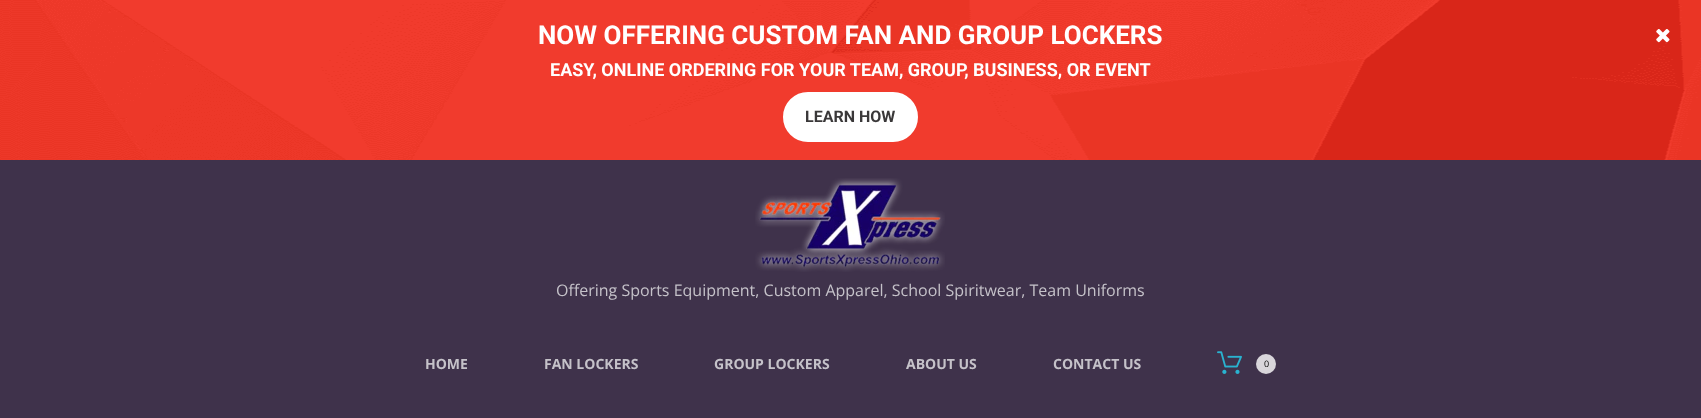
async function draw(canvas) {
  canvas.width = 1701;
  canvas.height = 418;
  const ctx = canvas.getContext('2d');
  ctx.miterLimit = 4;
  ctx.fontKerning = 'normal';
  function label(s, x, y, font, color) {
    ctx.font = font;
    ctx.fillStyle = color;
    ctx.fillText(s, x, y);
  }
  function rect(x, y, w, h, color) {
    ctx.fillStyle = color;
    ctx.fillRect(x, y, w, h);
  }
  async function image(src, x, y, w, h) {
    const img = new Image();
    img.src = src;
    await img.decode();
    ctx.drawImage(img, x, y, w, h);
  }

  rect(0, 0, 1701, 418, '#3f324b');
  rect(0, 0, 1701, 160, '#f61305');
  await image('assets/img1.png', 0, 0, 1701, 160);
  label('NOW OFFERING CUSTOM FAN AND GROUP LOCKERS', 538, 44, 'bold 26px Roboto', '#fff');
  label('EASY, ONLINE ORDERING FOR YOUR TEAM, GROUP, BUSINESS, OR EVENT', 550, 76, 'bold 18px Roboto', '#fff');
  ctx.beginPath();
  ctx.roundRect(784, 93, 133, 48, 24);
  ctx.fill();
  ctx.strokeStyle = '#fff';
  ctx.lineWidth = 2;
  ctx.stroke();
  label('LEARN HOW', 805, 122, 'bold 16px Roboto', '#3a3839');
  await image('assets/img2.png', 1656, 29, 14, 14);
  await image('assets/img3.png', 755, 178, 190, 94);
  label('Offering Sports Equipment, Custom Apparel, School Spiritwear, Team Uniforms', 556, 296, '16px Open Sans', '#c5c2c9');
  label('HOME', 425, 369, 'bold 14px Open Sans', '#c5c2c9');
  label('FAN LOCKERS', 544, 369, 'bold 14px Open Sans', '#c5c2c9');
  label('GROUP LOCKERS', 714, 369, 'bold 14px Open Sans', '#c5c2c9');
  label('ABOUT US', 906, 369, 'bold 14px Open Sans', '#c5c2c9');
  label('CONTACT US', 1053, 369, 'bold 14px Open Sans', '#c5c2c9');
  await image('assets/img4.png', 1217, 351, 25, 23);
  ctx.fillStyle = '#d9d6db';
  ctx.beginPath();
  ctx.arc(1266, 364, 10, 0, 2 * Math.PI);
  ctx.fill();
  label('0', 1264, 367, '9px Open Sans', '#000');
}

draw(document.querySelector('canvas'));
